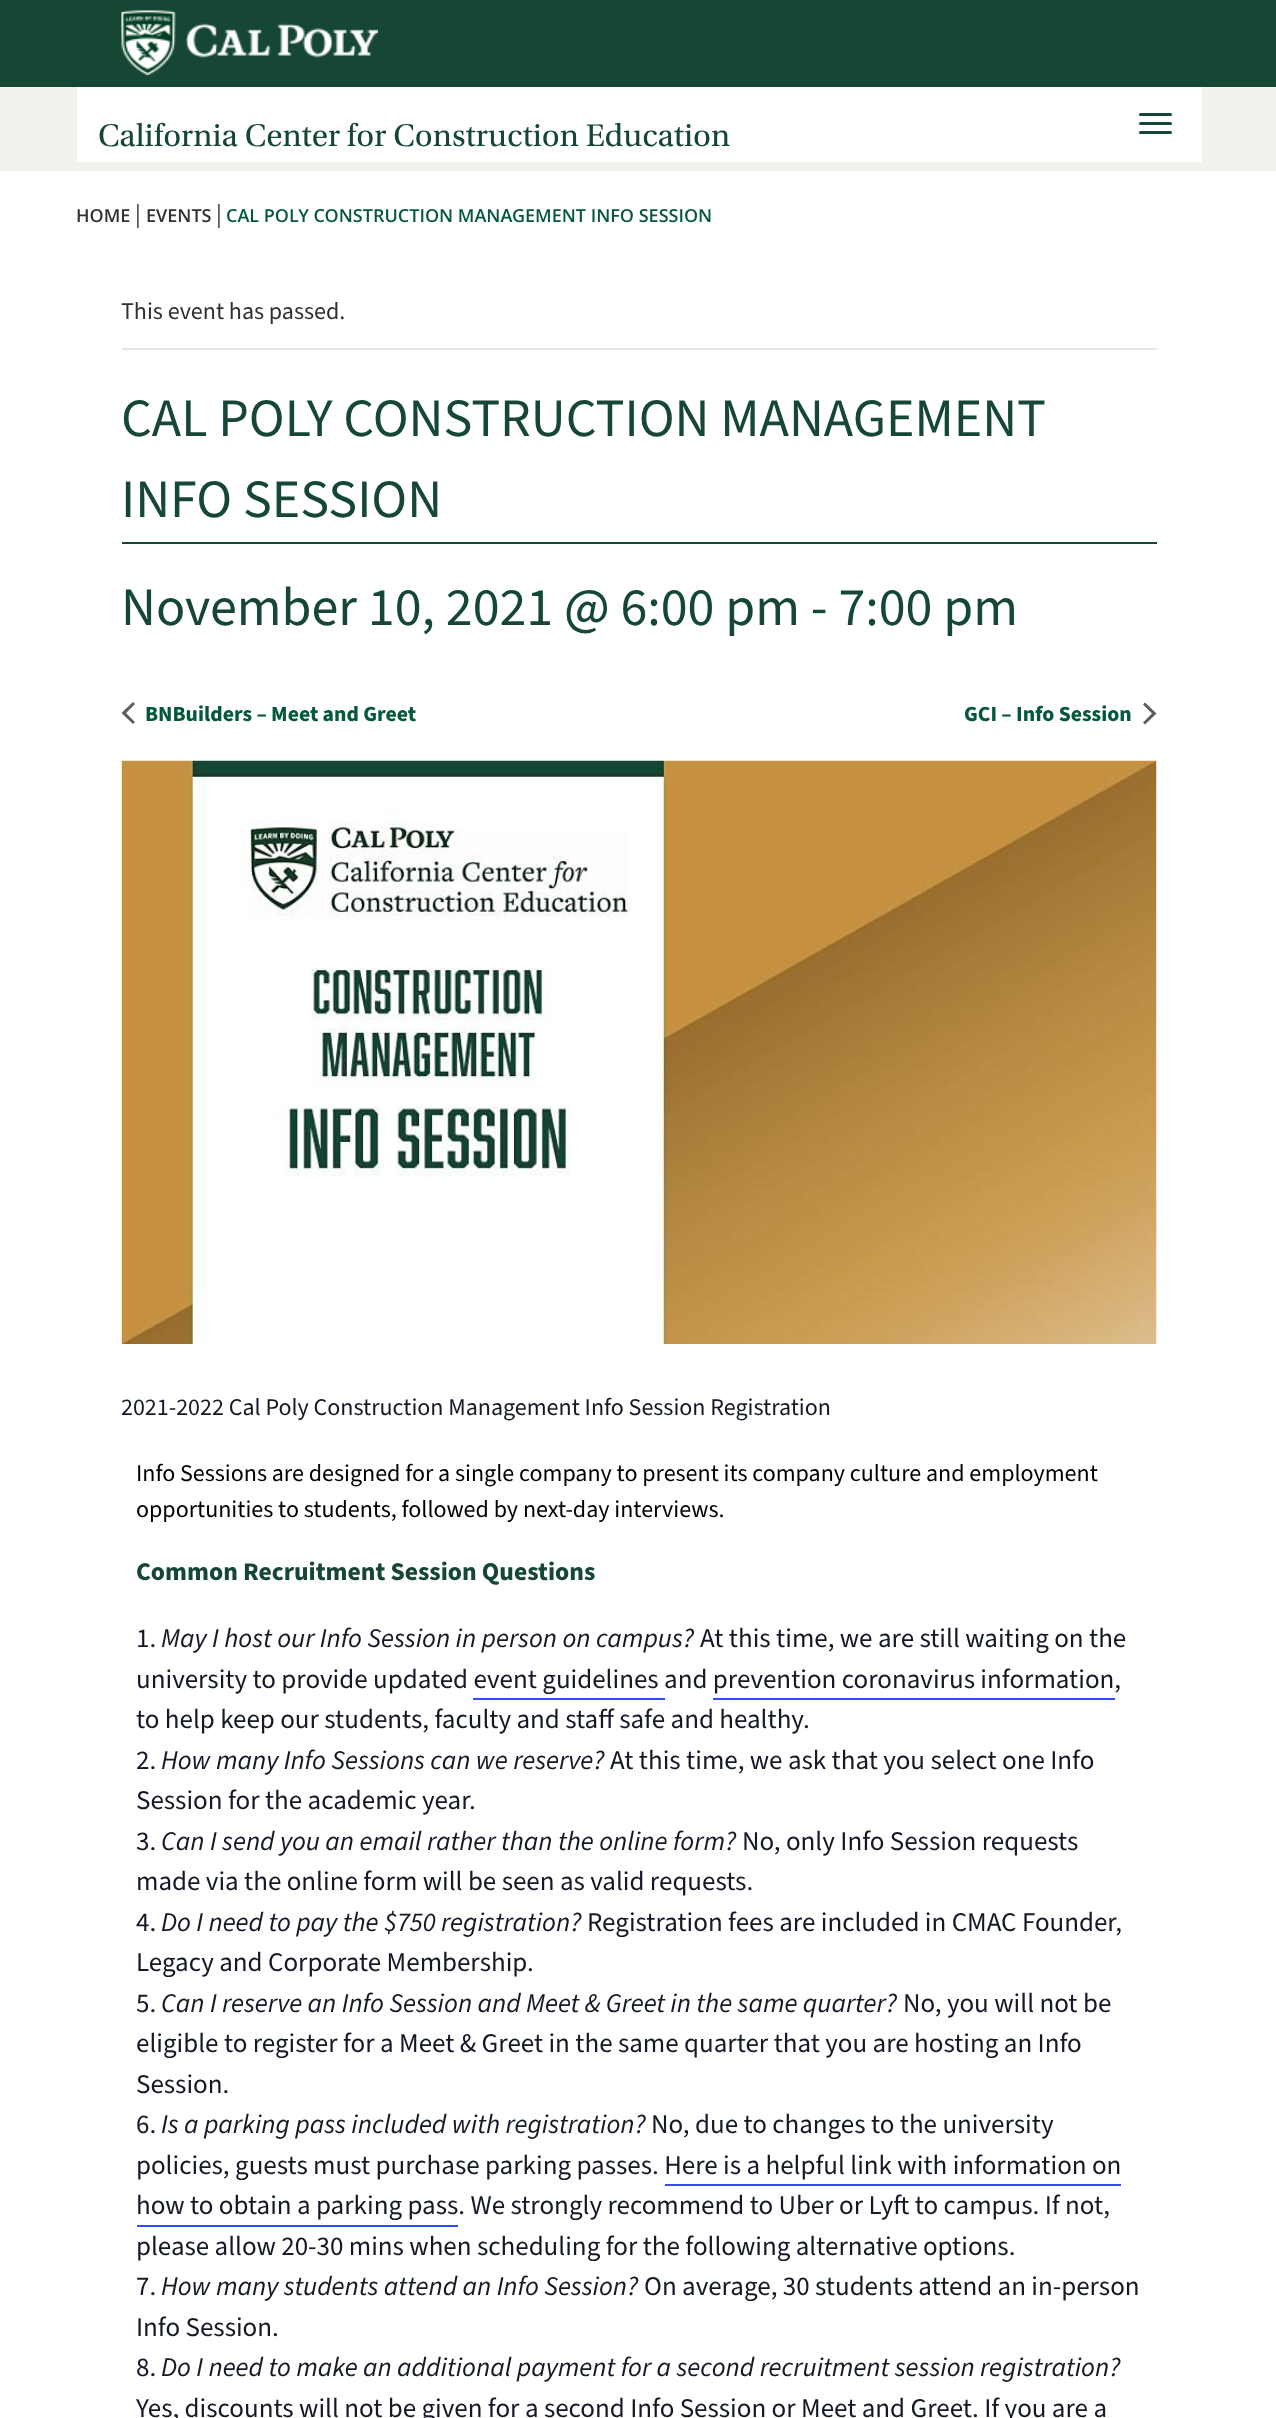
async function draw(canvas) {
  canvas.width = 1276;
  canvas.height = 2418;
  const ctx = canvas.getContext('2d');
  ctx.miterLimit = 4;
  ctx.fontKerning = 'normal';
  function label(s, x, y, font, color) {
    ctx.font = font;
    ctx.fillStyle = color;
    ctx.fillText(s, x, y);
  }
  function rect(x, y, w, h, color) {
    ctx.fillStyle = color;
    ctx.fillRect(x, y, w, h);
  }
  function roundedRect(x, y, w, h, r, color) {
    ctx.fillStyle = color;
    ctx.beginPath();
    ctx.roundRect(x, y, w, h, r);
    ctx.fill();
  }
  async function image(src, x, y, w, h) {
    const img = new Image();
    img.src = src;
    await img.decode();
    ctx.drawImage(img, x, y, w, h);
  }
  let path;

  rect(0, 0, 1276, 2418, '#fff');
  rect(0, 0, 1276, 87, '#154734');
  await image('assets/img1.png', 121, 10, 257, 65);
  rect(0, 87, 1276, 84, '#f2f1ed');
  rect(77, 87, 1125, 75, '#fff');
  label('California Center for Construction Education', 98, 146, '33px Utopia', '#154734');
  roundedRect(1139, 113, 33, 3, 1.5, '#154734');
  roundedRect(1139, 122, 33, 3, 1.5, '#154734');
  roundedRect(1139, 131, 33, 3, 1.5, '#154734');
  label('HOME', 76, 222, '600 18px Open Sans', '#303030');
  label('|', 135, 222, '24px Source Sans Pro', '#303030');
  label('EVENTS', 146, 222, '600 18px Open Sans', '#303030');
  label('|', 216, 222, '24px Source Sans Pro', '#303030');
  label('CAL POLY CONSTRUCTION MANAGEMENT INFO SESSION', 226, 222, '600 18px Open Sans', '#04593a');
  rect(122, 348, 1035, 2, '#e4e4e4');
  label('This event has passed.', 121, 319, '24px Source Sans Pro', '#303030');
  rect(122, 542, 1035, 2, '#154734');
  label('CAL POLY CONSTRUCTION MANAGEMENT', 121, 436, '54px Source Sans Pro', '#154734');
  label('INFO SESSION', 121, 517, '54px Source Sans Pro', '#154734');
  label('November 10, 2021 @ 6:00 pm - 7:00 pm', 121, 625, '54px Source Sans Pro', '#154734');
  ctx.fillStyle = '#5d5d5d';
  path = new Path2D('M135 722L133 724L121.5 713L133 702L135 704L126 713Z');
  ctx.fill(path);
  label('BNBuilders – Meet and Greet', 145, 721, 'bold 21.6px Source Sans Pro', '#04593a');
  label('GCI – Info Session', 964, 721, 'bold 21.6px Source Sans Pro', '#04593a');
  ctx.fillStyle = '#5d5d5d';
  path = new Path2D('M1143 704.5L1145 702.5L1156.5 713.5L1145 724.5L1143 722.5L1152 713.5Z');
  ctx.fill(path);
  await image('assets/img2.png', 121, 760, 1036, 584);
  ctx.save();
  ctx.beginPath();
  ctx.rect(122, 761, 1035, 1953);
  ctx.clip();
  label('2021-2022 Cal Poly Construction Management Info Session Registration', 121, 1415, '24px Source Sans Pro', '#141827');
  ctx.restore();
  label('Info Sessions are designed for a single company to present its company culture and employment', 136, 1481, '24px Source Sans Pro', '#000');
  label('opportunities to students, followed by next-day interviews.', 136, 1517, '24px Source Sans Pro', '#000');
  label('Common Recruitment Session Questions', 136, 1580, 'bold 25.5px Source Sans Pro', '#154734');
  label('1.', 136, 1647, '27px Source Sans Pro', '#141827');
  label('May I host our Info Session in person on campus?', 161, 1647, 'italic 27px Source Sans Pro', '#141827');
  label('At this time, we are still waiting on the', 700, 1647, '27px Source Sans Pro', '#141827');
  label('university to provide updated event guidelines and prevention coronavirus information,', 136, 1688, '27px Source Sans Pro', '#141827');
  rect(473, 1698, 192, 2, '#334aff');
  rect(713, 1698, 402, 2, '#334aff');
  label('to help keep our students, faculty and staff safe and healthy.', 136, 1728, '27px Source Sans Pro', '#141827');
  label('2.', 136, 1769, '27px Source Sans Pro', '#141827');
  label('How many Info Sessions can we reserve?', 161, 1769, 'italic 27px Source Sans Pro', '#141827');
  label('At this time, we ask that you select one Info', 610, 1769, '27px Source Sans Pro', '#141827');
  label('Session for the academic year.', 136, 1809, '27px Source Sans Pro', '#141827');
  label('3.', 136, 1850, '27px Source Sans Pro', '#141827');
  label('Can I send you an email rather than the online form?', 161, 1850, 'italic 27px Source Sans Pro', '#141827');
  label('No, only Info Session requests', 742, 1850, '27px Source Sans Pro', '#141827');
  label('made via the online form will be seen as valid requests.', 136, 1890, '27px Source Sans Pro', '#141827');
  label('4.', 136, 1931, '27px Source Sans Pro', '#141827');
  label('Do I need to pay the $750 registration?', 161, 1931, 'italic 27px Source Sans Pro', '#141827');
  label('Registration fees are included in CMAC Founder,', 587, 1931, '27px Source Sans Pro', '#141827');
  label('Legacy and Corporate Membership.', 136, 1971, '27px Source Sans Pro', '#141827');
  label('5.', 136, 2012, '27px Source Sans Pro', '#141827');
  label('Can I reserve an Info Session and Meet & Greet in the same quarter?', 161, 2012, 'italic 27px Source Sans Pro', '#141827');
  label('No, you will not be', 903, 2012, '27px Source Sans Pro', '#141827');
  label('eligible to register for a Meet & Greet in the same quarter that you are hosting an Info', 136, 2052, '27px Source Sans Pro', '#141827');
  label('Session.', 136, 2093, '27px Source Sans Pro', '#141827');
  label('6.', 136, 2133, '27px Source Sans Pro', '#141827');
  label('Is a parking pass included with registration?', 161, 2133, 'italic 27px Source Sans Pro', '#141827');
  label('No, due to changes to the university', 651, 2133, '27px Source Sans Pro', '#141827');
  label('policies, guests must purchase parking passes. Here is a helpful link with information on', 136, 2174, '27px Source Sans Pro', '#141827');
  label('how to obtain a parking pass. We strongly recommend to Uber or Lyft to campus. If not,', 136, 2214, '27px Source Sans Pro', '#141827');
  rect(665, 2184, 456, 2, '#334aff');
  rect(137, 2225, 321, 2, '#334aff');
  label('please allow 20-30 mins when scheduling for the following alternative options.', 136, 2255, '27px Source Sans Pro', '#141827');
  label('7.', 136, 2295, '27px Source Sans Pro', '#141827');
  label('How many students attend an Info Session?', 161, 2295, 'italic 27px Source Sans Pro', '#141827');
  label('On average, 30 students attend an in-person', 644, 2295, '27px Source Sans Pro', '#141827');
  label('Info Session.', 136, 2336, '27px Source Sans Pro', '#141827');
  label('8.', 136, 2376, '27px Source Sans Pro', '#141827');
  label('Do I need to make an additional payment for a second recruitment session registration?', 161, 2376, 'italic 27px Source Sans Pro', '#141827');
  label('Yes, discounts will not be given for a second Info Session or Meet and Greet. If you are a', 136, 2417, '27px Source Sans Pro', '#141827');
}

draw(document.querySelector('canvas'));
